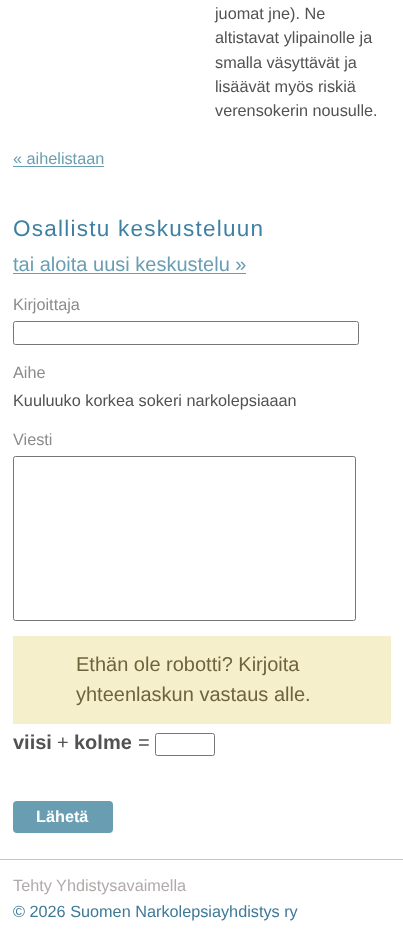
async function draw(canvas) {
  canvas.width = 403;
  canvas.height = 937;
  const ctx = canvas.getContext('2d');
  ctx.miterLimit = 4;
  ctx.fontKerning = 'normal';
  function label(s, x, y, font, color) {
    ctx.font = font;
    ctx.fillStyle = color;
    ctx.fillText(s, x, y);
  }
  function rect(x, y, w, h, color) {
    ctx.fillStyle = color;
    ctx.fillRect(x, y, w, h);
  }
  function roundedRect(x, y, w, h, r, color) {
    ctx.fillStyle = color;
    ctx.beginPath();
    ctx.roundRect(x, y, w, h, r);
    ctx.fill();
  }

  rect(0, 0, 403, 937, '#fff');
  label('juomat jne). Ne', 215, 19, '16.25px Liberation Sans', '#525252');
  label('altistavat ylipainolle ja', 215, 43, '16.25px Liberation Sans', '#525252');
  label('smalla väsyttävät ja', 215, 68, '16.25px Liberation Sans', '#525252');
  label('lisäävät myös riskiä', 215, 92, '16.25px Liberation Sans', '#525252');
  label('verensokerin nousulle.', 215, 116, '16.25px Liberation Sans', '#525252');
  label('« aihelistaan', 13, 164, '16.25px Liberation Sans', '#699eb2');
  rect(13, 166, 91, 1, '#699eb2');
  ctx.letterSpacing = '1.25px';
  label('Osallistu keskusteluun', 13, 236, '22.5px Liberation Sans', '#3e80a4');
  ctx.letterSpacing = '0px';
  label('tai aloita uusi keskustelu »', 13, 271, '20px Liberation Sans', '#699eb2');
  rect(13, 273, 233, 1, '#699eb2');
  label('Kirjoittaja', 13, 310, '16.25px Liberation Sans', '#8b8b8b');
  ctx.beginPath();
  ctx.roundRect(13.5, 321.5, 345, 23, 2);
  ctx.strokeStyle = '#767676';
  ctx.stroke();
  label('Aihe', 13, 378, '16.25px Liberation Sans', '#8b8b8b');
  label('Kuuluuko korkea sokeri narkolepsiaaan', 13, 406, '16.25px Liberation Sans', '#525252');
  label('Viesti', 13, 445, '16.25px Liberation Sans', '#8b8b8b');
  ctx.beginPath();
  ctx.roundRect(13.5, 456.5, 342, 164, 2);
  ctx.stroke();
  rect(13, 636, 378, 88, '#f6efcc');
  label('Ethän ole robotti? Kirjoita', 76, 671, '20px Liberation Sans', '#6d643c');
  label('yhteenlaskun vastaus alle.', 76, 701, '20px Liberation Sans', '#6d643c');
  label('viisi', 13, 749, 'bold 20px Liberation Sans', '#525252');
  label('+', 57, 749, '20px Liberation Sans', '#525252');
  label('kolme', 74, 749, 'bold 20px Liberation Sans', '#525252');
  label('=', 138, 749, '20px Liberation Sans', '#525252');
  ctx.beginPath();
  ctx.roundRect(155.5, 733.5, 59, 22, 2);
  ctx.stroke();
  roundedRect(13, 801, 100, 32, 4, '#699eb2');
  label('Lähetä', 36, 822, 'bold 16.25px Liberation Sans', '#fff');
  rect(0, 859, 403, 1, '#a2d1e0');
  label('Tehty Yhdistysavaimella', 13, 891, '16.25px Liberation Sans', '#b1aaaa');
  label('© 2026 Suomen Narkolepsiayhdistys ry', 13, 917, '16.25px Liberation Sans', '#3e7996');
}

draw(document.querySelector('canvas'));
